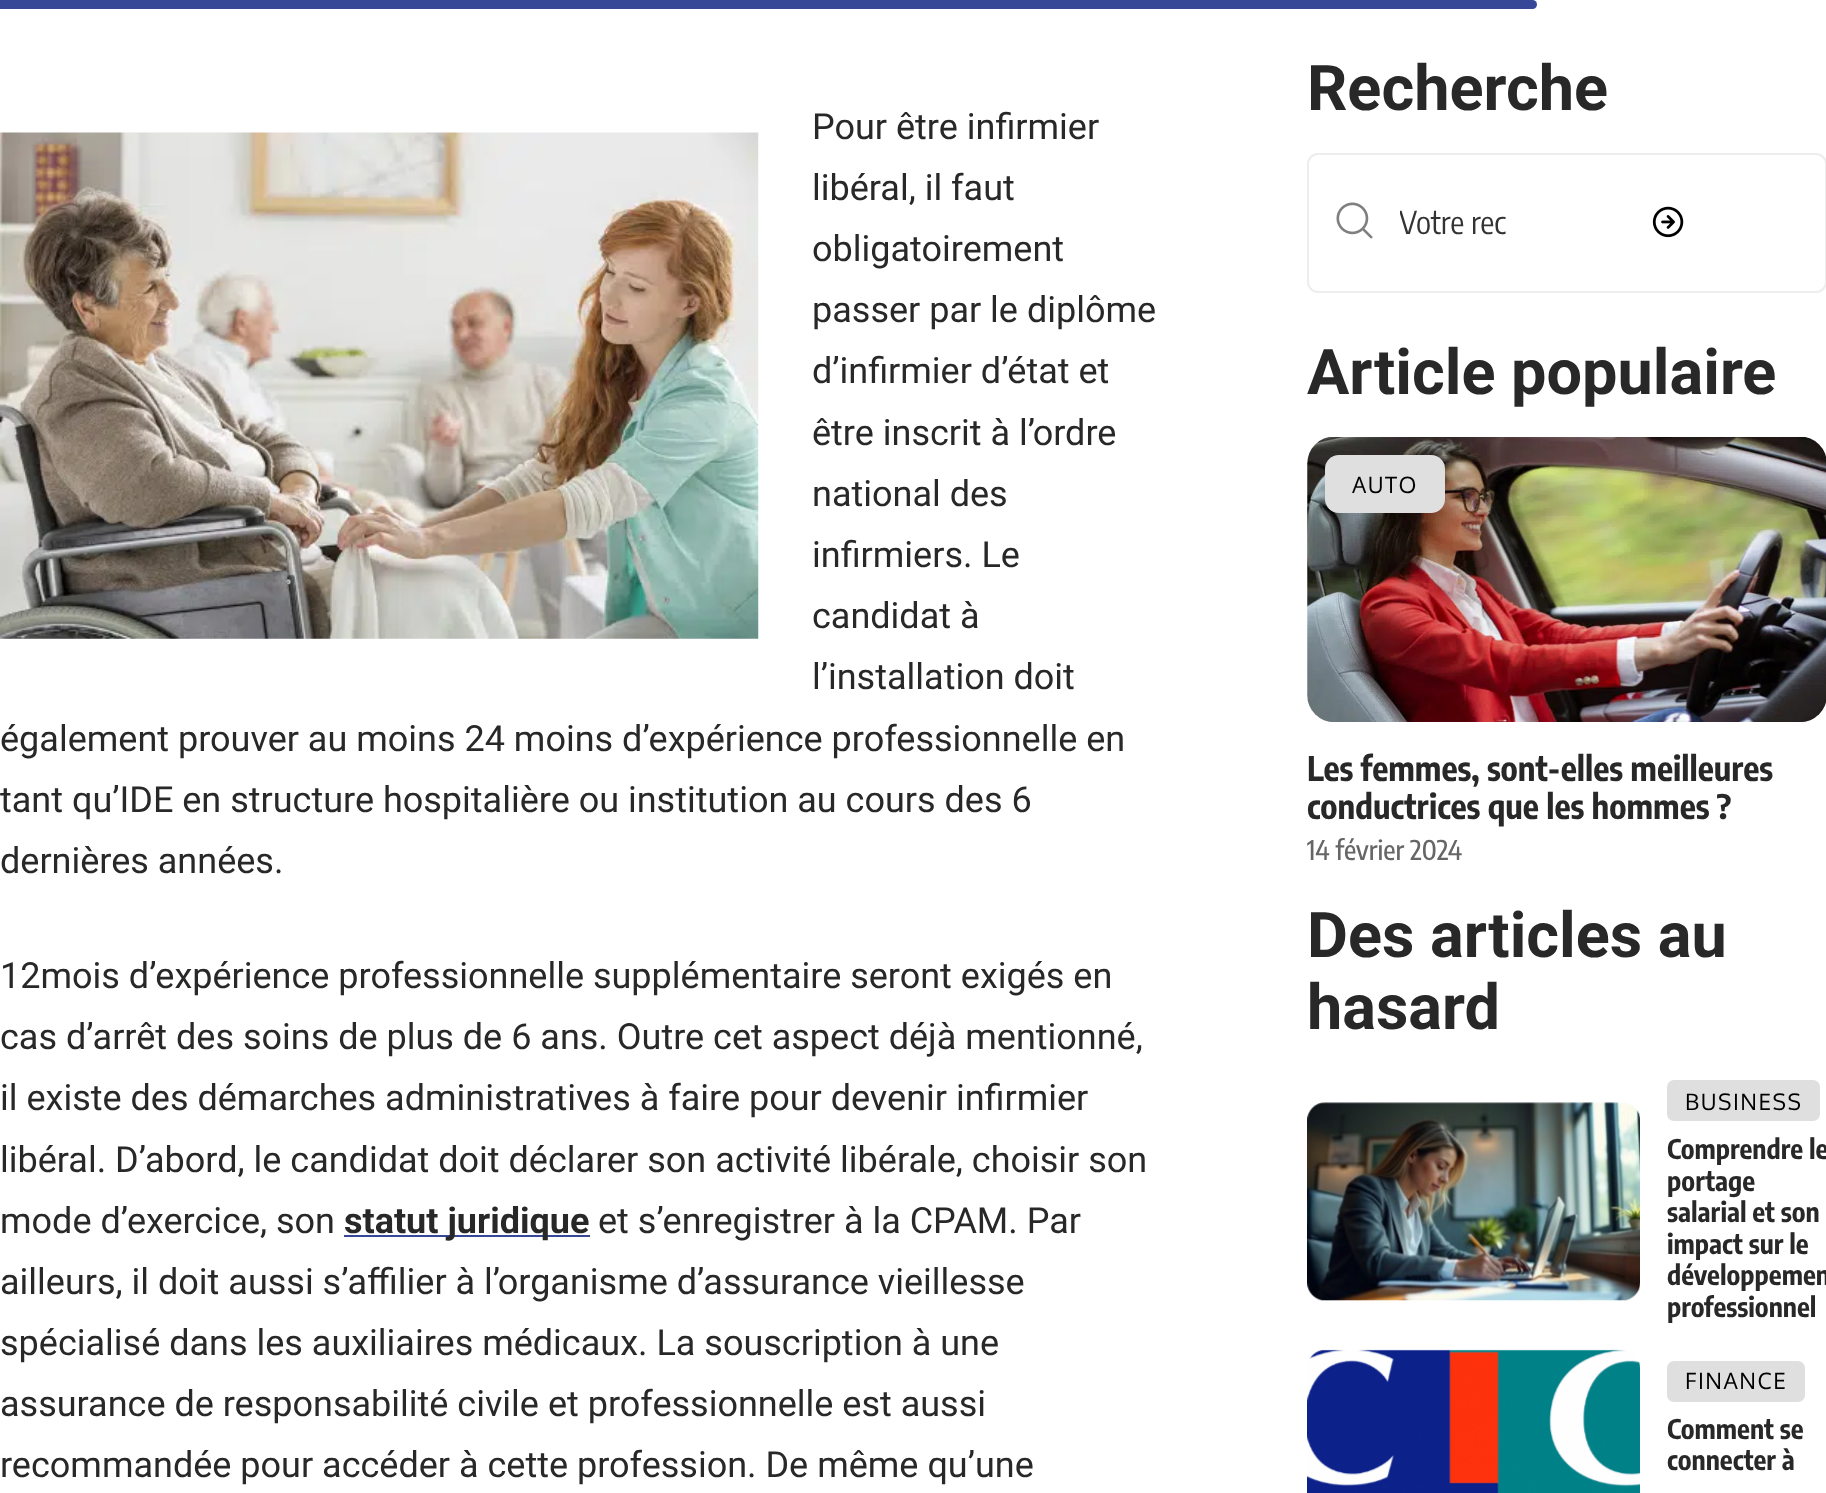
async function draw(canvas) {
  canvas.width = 1826;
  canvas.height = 1493;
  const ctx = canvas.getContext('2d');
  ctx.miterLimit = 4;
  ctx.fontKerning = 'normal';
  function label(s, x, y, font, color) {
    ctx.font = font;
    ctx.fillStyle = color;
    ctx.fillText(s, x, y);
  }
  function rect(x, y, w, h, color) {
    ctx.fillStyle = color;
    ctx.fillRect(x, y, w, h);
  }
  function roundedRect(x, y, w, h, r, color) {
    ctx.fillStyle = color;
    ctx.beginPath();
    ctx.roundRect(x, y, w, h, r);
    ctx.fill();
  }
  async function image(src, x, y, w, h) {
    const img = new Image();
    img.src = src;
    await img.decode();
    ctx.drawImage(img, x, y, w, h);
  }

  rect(0, 0, 1826, 1493, '#fff');
  ctx.fillStyle = '#374797';
  ctx.beginPath();
  ctx.roundRect(0, 0, 1537, 9, [0, 4.5, 4.5, 0]);
  ctx.fill();
  label('Pour être infirmier', 812, 139, '36px Roboto', '#282828');
  await image('assets/img1.png', 0, 132, 759, 507);
  label('libéral, il faut', 812, 200, '36px Roboto', '#282828');
  label('obligatoirement', 812, 261, '36px Roboto', '#282828');
  label('passer par le diplôme', 812, 322, '36px Roboto', '#282828');
  label('d’infirmier d’état et', 812, 383, '36px Roboto', '#282828');
  label('être inscrit à l’ordre', 812, 445, '36px Roboto', '#282828');
  label('national des', 812, 506, '36px Roboto', '#282828');
  label('infirmiers. Le', 812, 567, '36px Roboto', '#282828');
  label('candidat à', 812, 628, '36px Roboto', '#282828');
  label('l’installation doit', 812, 689, '36px Roboto', '#282828');
  label('également prouver au moins 24 moins d’expérience professionnelle en', 0, 751, '36px Roboto', '#282828');
  label('tant qu’IDE en structure hospitalière ou institution au cours des 6', 0, 812, '36px Roboto', '#282828');
  label('dernières années.', 0, 873, '36px Roboto', '#282828');
  label('12mois d’expérience professionnelle supplémentaire seront exigés en', 0, 988, '36px Roboto', '#282828');
  label('cas d’arrêt des soins de plus de 6 ans. Outre cet aspect déjà mentionné,', 0, 1049, '36px Roboto', '#282828');
  label('il existe des démarches administratives à faire pour devenir infirmier', 0, 1110, '36px Roboto', '#282828');
  label('libéral. D’abord, le candidat doit déclarer son activité libérale, choisir son', 0, 1172, '36px Roboto', '#282828');
  label('mode d’exercice, son', 0, 1233, '36px Roboto', '#282828');
  rect(344, 1235, 246, 2, '#374797');
  label('statut juridique', 344, 1233, 'bold 36px Roboto', '#282828');
  label('et s’enregistrer à la CPAM. Par', 598, 1233, '36px Roboto', '#282828');
  label('ailleurs, il doit aussi s’affilier à l’organisme d’assurance vieillesse', 0, 1294, '36px Roboto', '#282828');
  label('spécialisé dans les auxiliaires médicaux. La souscription à une', 0, 1355, '36px Roboto', '#282828');
  label('assurance de responsabilité civile et professionnelle est aussi', 0, 1416, '36px Roboto', '#282828');
  label('recommandée pour accéder à cette profession. De même qu’une', 0, 1477, '36px Roboto', '#282828');
  label('Recherche', 1307, 110, 'bold 63px Roboto', '#282828');
  ctx.beginPath();
  ctx.roundRect(1308, 154, 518, 138, 10);
  ctx.strokeStyle = '#ededed';
  ctx.lineWidth = 2;
  ctx.stroke();
  await image('assets/img2.png', 1336, 202, 37, 37);
  ctx.save();
  ctx.beginPath();
  ctx.rect(1400, 203, 110, 38);
  ctx.clip();
  label('Votre rec', 1399, 234, '31.5px Encode Sans Condensed', '#333');
  ctx.restore();
  await image('assets/img3.png', 1652, 206, 32, 32);
  label('Article populaire', 1307, 394, 'bold 63px Roboto', '#282828');
  await image('assets/img4.png', 1307, 437, 519, 285);
  roundedRect(1325, 455, 120, 58, 14, '#dfdfdf');
  ctx.letterSpacing = '1.5px';
  label('AUTO', 1352, 493, '22.5px Oxygen', '#000');
  ctx.letterSpacing = '0px';
  label('Les femmes, sont-elles meilleures', 1307, 781, 'bold 33.75px Encode Sans Condensed', '#282828');
  label('conductrices que les hommes ?', 1307, 819, 'bold 33.75px Encode Sans Condensed', '#282828');
  label('14 février 2024', 1307, 860, '500 27px Encode Sans Condensed', '#666');
  label('Des articles au', 1307, 957, 'bold 63px Roboto', '#282828');
  label('hasard', 1307, 1029, 'bold 63px Roboto', '#282828');
  await image('assets/img5.png', 1307, 1102, 333, 199);
  roundedRect(1667, 1080, 153, 41, 7, '#dfdfdf');
  ctx.letterSpacing = '1.5px';
  label('BUSINESS', 1685, 1110, '22.5px Oxygen', '#000');
  ctx.letterSpacing = '0px';
  label('Comprendre le', 1667, 1159, 'bold 27px Encode Sans Condensed', '#282828');
  label('portage', 1667, 1191, 'bold 27px Encode Sans Condensed', '#282828');
  label('salarial et son', 1667, 1222, 'bold 27px Encode Sans Condensed', '#282828');
  label('impact sur le', 1667, 1254, 'bold 27px Encode Sans Condensed', '#282828');
  label('développemen', 1667, 1285, 'bold 27px Encode Sans Condensed', '#282828');
  label('professionnel', 1667, 1317, 'bold 27px Encode Sans Condensed', '#282828');
  await image('assets/img6.png', 1307, 1349, 333, 144);
  roundedRect(1667, 1361, 138, 41, 7, '#dfdfdf');
  ctx.letterSpacing = '1.5px';
  label('FINANCE', 1685, 1389, '22.5px Oxygen', '#000');
  ctx.letterSpacing = '0px';
  label('Comment se', 1667, 1439, 'bold 27px Encode Sans Condensed', '#282828');
  label('connecter à', 1667, 1470, 'bold 27px Encode Sans Condensed', '#282828');
}

draw(document.querySelector('canvas'));
